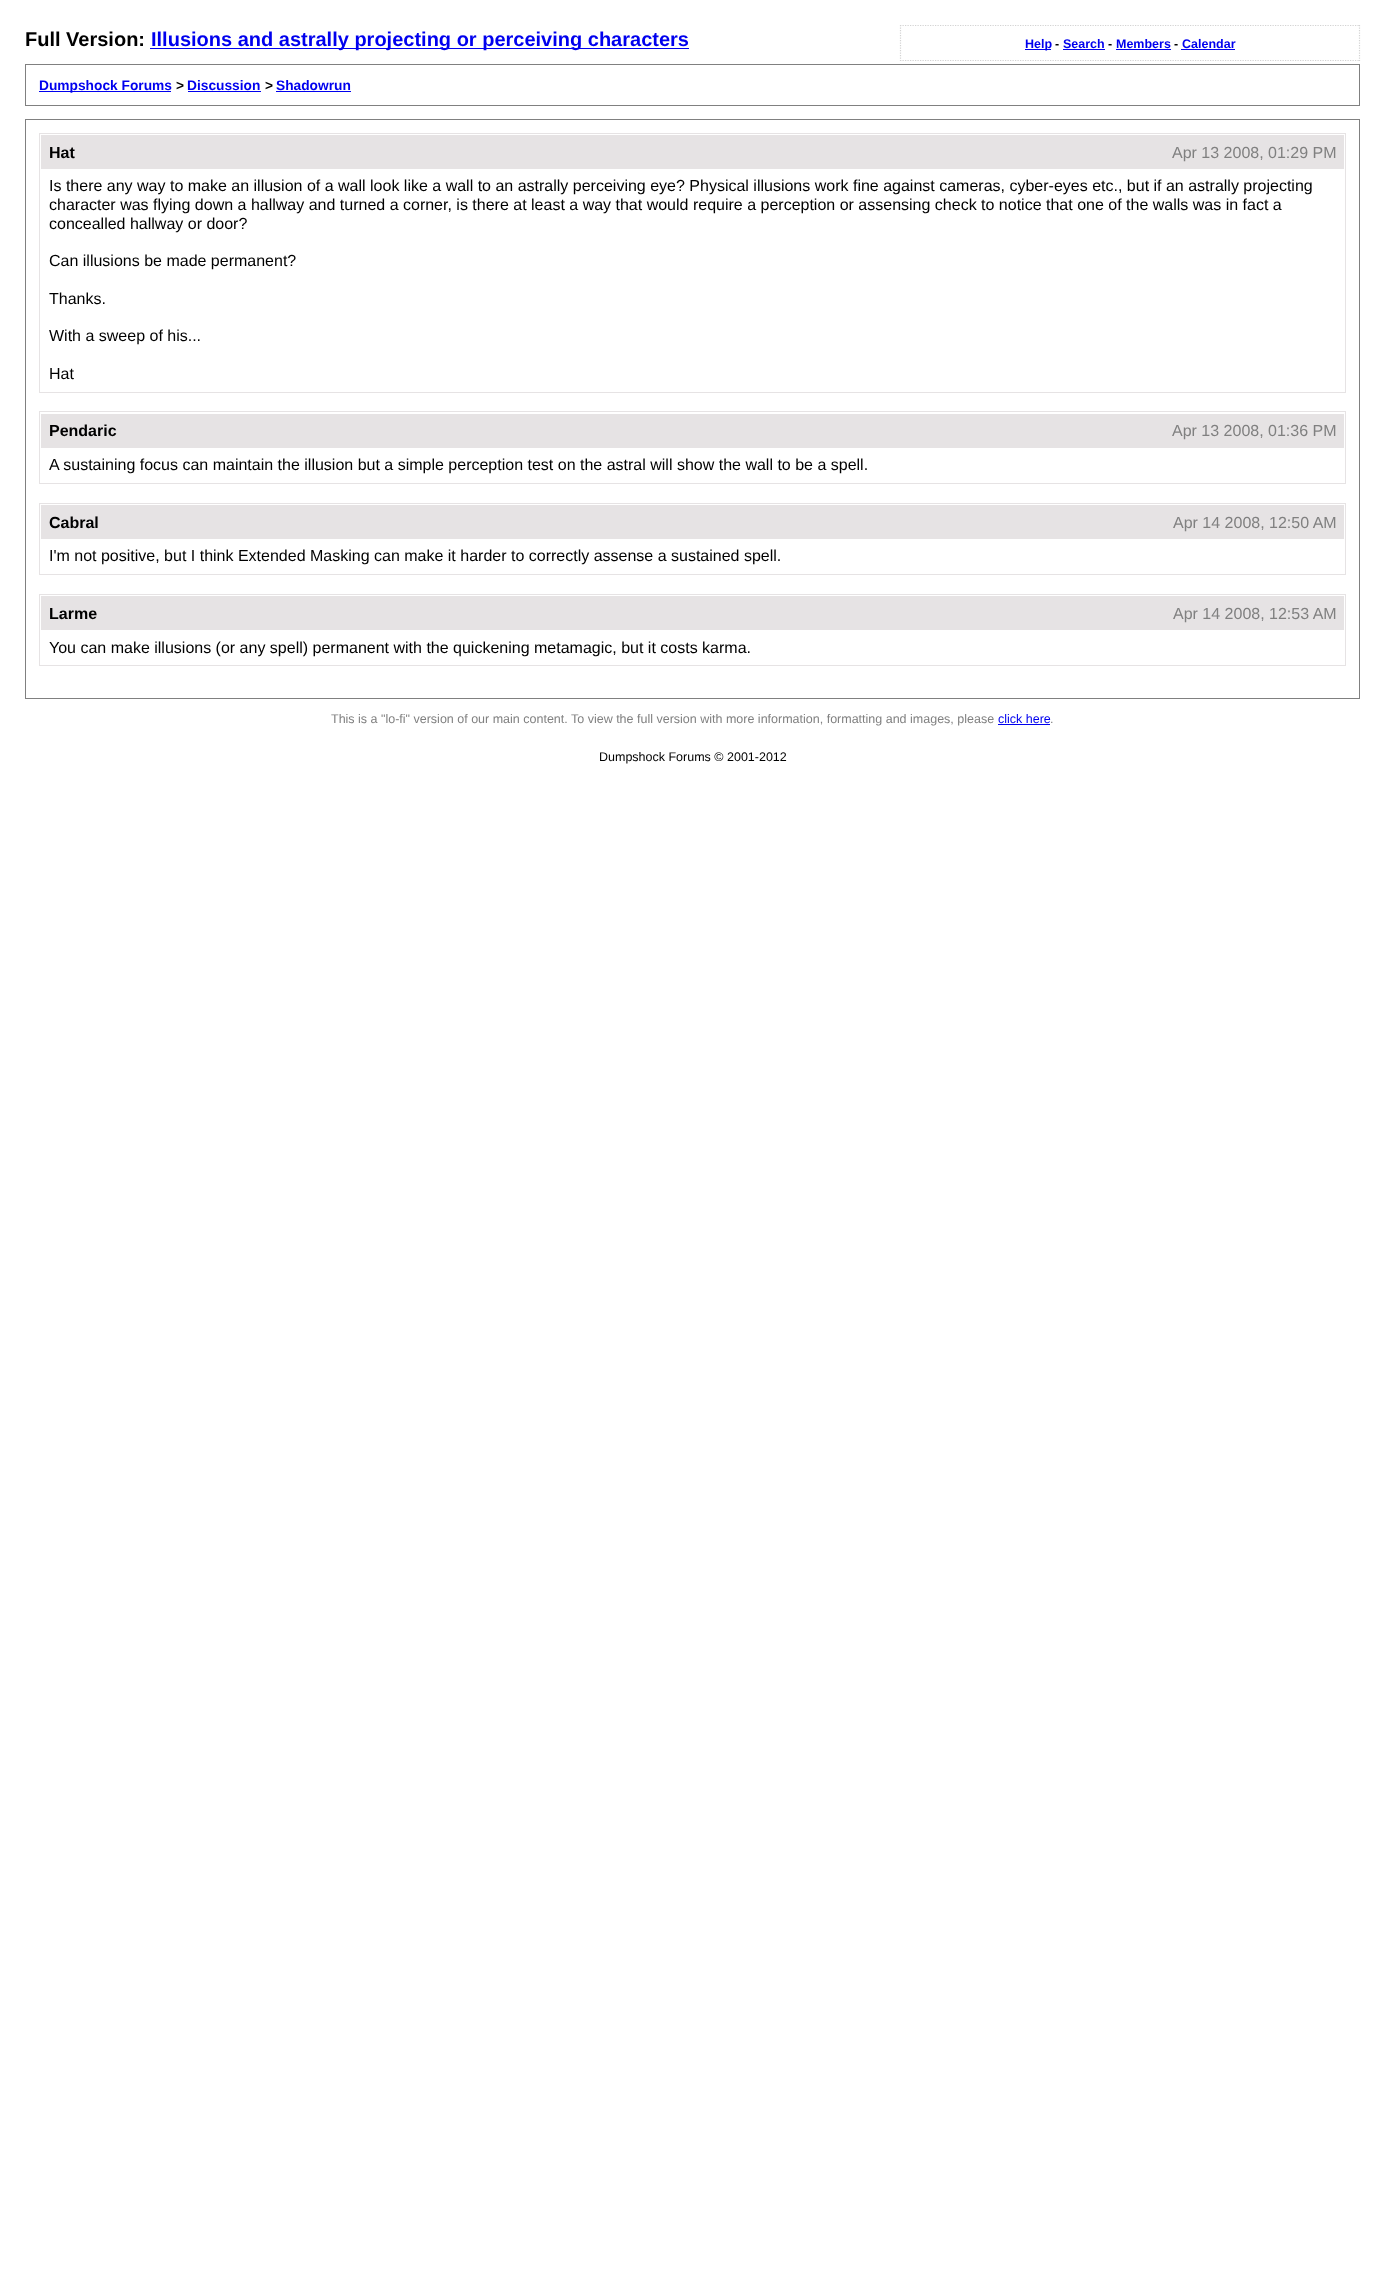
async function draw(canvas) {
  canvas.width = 1384;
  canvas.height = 2288;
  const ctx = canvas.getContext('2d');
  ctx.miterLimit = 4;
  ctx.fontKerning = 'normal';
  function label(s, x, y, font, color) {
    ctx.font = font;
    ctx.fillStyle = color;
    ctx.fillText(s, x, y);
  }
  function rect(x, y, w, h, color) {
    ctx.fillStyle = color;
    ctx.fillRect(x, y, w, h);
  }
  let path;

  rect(0, 0, 1384, 2288, '#fff');
  label('Full Version:', 25, 46, 'bold 20px Liberation Sans', '#000');
  rect(150, 48, 539, 1, '#00e');
  label('Illusions and astrally projecting or perceiving characters', 151, 46, 'bold 20px Liberation Sans', '#00e');
  path = new Path2D('M900 25.5H1360');
  ctx.strokeStyle = '#d3d3d3';
  ctx.lineWidth = 1.2;
  ctx.setLineDash([1.25, 1.25]);
  ctx.stroke(path);
  path = new Path2D('M1359.5 25V61');
  ctx.stroke(path);
  path = new Path2D('M900 60.5H1360');
  ctx.stroke(path);
  path = new Path2D('M900.5 25V61');
  ctx.stroke(path);
  rect(1025, 49, 26, 1, '#00e');
  label('Help', 1025, 48, 'bold 12.5px Liberation Sans', '#00e');
  label('-', 1055, 48, 'bold 12.5px Liberation Sans', '#000');
  label('Search', 1063, 48, 'bold 12.5px Liberation Sans', '#00e');
  rect(1063, 49, 42, 1, '#00e');
  label('-', 1108, 48, 'bold 12.5px Liberation Sans', '#000');
  label('Members', 1116, 48, 'bold 12.5px Liberation Sans', '#00e');
  rect(1116, 49, 55, 1, '#00e');
  label('-', 1174, 48, 'bold 12.5px Liberation Sans', '#000');
  label('Calendar', 1182, 48, 'bold 12.5px Liberation Sans', '#00e');
  rect(1181, 49, 54, 1, '#00e');
  ctx.strokeStyle = '#808080';
  ctx.lineWidth = 1;
  ctx.setLineDash([]);
  ctx.strokeRect(25.5, 64.5, 1334, 41);
  rect(39, 91, 132, 1, '#00e');
  label('Dumpshock Forums', 39, 90, 'bold 13.75px Liberation Sans', '#00e');
  label('>', 176, 90, 'bold 13.75px Liberation Sans', '#000');
  label('Discussion', 187, 90, 'bold 13.75px Liberation Sans', '#00e');
  rect(188, 91, 73, 1, '#00e');
  label('>', 265, 90, 'bold 13.75px Liberation Sans', '#000');
  label('Shadowrun', 276, 90, 'bold 13.75px Liberation Sans', '#00e');
  rect(276, 91, 75, 1, '#00e');
  ctx.strokeRect(25.5, 119.5, 1334, 579);
  ctx.strokeStyle = '#e6e3e4';
  ctx.strokeRect(39.5, 133.5, 1306, 259);
  rect(41, 135, 1303, 34, '#e6e3e4');
  label('Hat', 49, 158, 'bold 16px Liberation Sans', '#000');
  label('Apr 13 2008, 01:29 PM', 1172, 158, '16px Liberation Sans', '#808080');
  label('Is there any way to make an illusion of a wall look like a wall to an astrally perceiving eye? Physical illusions work fine against cameras, cyber-eyes etc., but if an astrally projecting', 49, 191, '16px Liberation Sans', '#000');
  label('character was flying down a hallway and turned a corner, is there at least a way that would require a perception or assensing check to notice that one of the walls was in fact a', 49, 210, '16px Liberation Sans', '#000');
  label('concealled hallway or door?', 49, 229, '16px Liberation Sans', '#000');
  label('Can illusions be made permanent?', 49, 266, '16px Liberation Sans', '#000');
  label('Thanks.', 49, 304, '16px Liberation Sans', '#000');
  label('With a sweep of his...', 49, 341, '16px Liberation Sans', '#000');
  label('Hat', 49, 379, '16px Liberation Sans', '#000');
  ctx.strokeRect(39.5, 411.5, 1306, 72);
  rect(41, 414, 1303, 34, '#e6e3e4');
  label('Pendaric', 49, 436, 'bold 16px Liberation Sans', '#000');
  label('Apr 13 2008, 01:36 PM', 1172, 436, '16px Liberation Sans', '#808080');
  label('A sustaining focus can maintain the illusion but a simple perception test on the astral will show the wall to be a spell.', 49, 470, '16px Liberation Sans', '#000');
  ctx.strokeRect(39.5, 503.5, 1306, 71);
  rect(41, 505, 1303, 34, '#e6e3e4');
  label('Cabral', 49, 528, 'bold 16px Liberation Sans', '#000');
  label('Apr 14 2008, 12:50 AM', 1173, 528, '16px Liberation Sans', '#808080');
  label('I\'m not positive, but I think Extended Masking can make it harder to correctly assense a sustained spell.', 49, 561, '16px Liberation Sans', '#000');
  ctx.strokeRect(39.5, 594.5, 1306, 71);
  rect(41, 596, 1303, 34, '#e6e3e4');
  label('Larme', 49, 619, 'bold 16px Liberation Sans', '#000');
  label('Apr 14 2008, 12:53 AM', 1173, 619, '16px Liberation Sans', '#808080');
  label('You can make illusions (or any spell) permanent with the quickening metamagic, but it costs karma.', 49, 653, '16px Liberation Sans', '#000');
  label('This is a "lo-fi" version of our main content. To view the full version with more information, formatting and images, please', 331, 723, '12.5px Liberation Sans', '#808080');
  label('click here', 998, 723, '12.5px Liberation Sans', '#00e');
  rect(998, 724, 52, 1, '#00e');
  label('.', 1050, 723, '12.5px Liberation Sans', '#808080');
  label('Dumpshock Forums © 2001-2012', 599, 761, '12.5px Liberation Sans', '#000');
}

draw(document.querySelector('canvas'));
